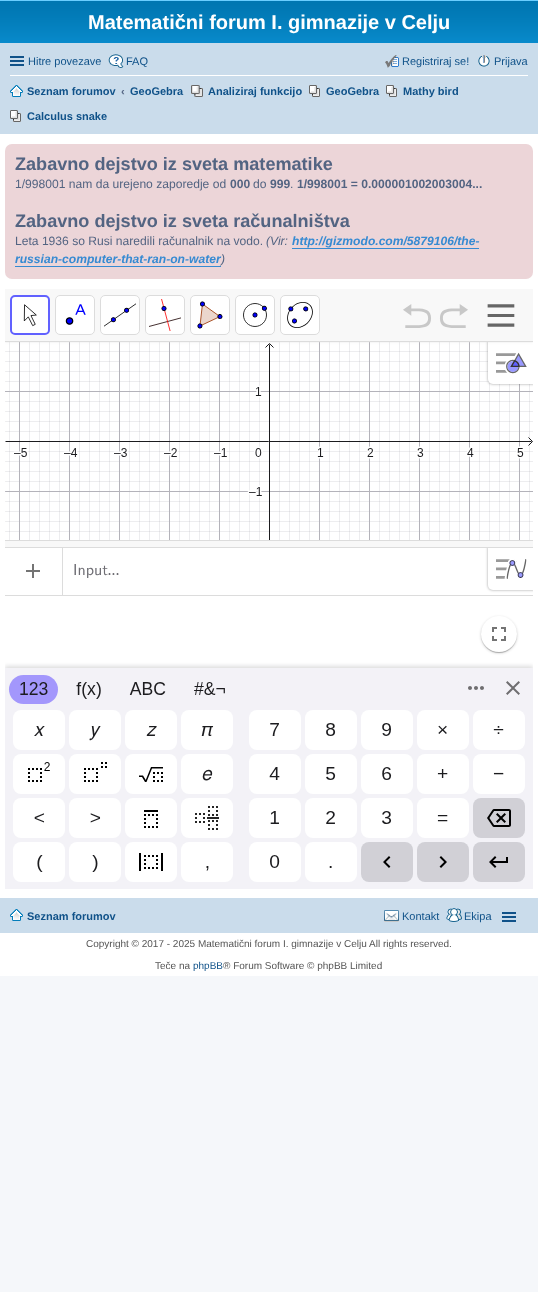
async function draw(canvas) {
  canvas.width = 538;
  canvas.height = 1292;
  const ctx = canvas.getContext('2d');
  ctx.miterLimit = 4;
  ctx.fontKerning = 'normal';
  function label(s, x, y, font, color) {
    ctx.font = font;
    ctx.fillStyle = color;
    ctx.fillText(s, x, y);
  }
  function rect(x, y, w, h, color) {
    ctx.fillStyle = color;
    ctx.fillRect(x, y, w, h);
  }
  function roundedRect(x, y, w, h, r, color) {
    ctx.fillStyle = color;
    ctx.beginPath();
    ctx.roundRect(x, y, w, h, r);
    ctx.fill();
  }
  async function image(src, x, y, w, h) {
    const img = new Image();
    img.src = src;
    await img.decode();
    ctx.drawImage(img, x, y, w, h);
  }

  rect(0, 0, 538, 1292, '#f5f7fa');
  rect(0, 134, 538, 842, '#fff');
  await image('assets/img1.png', 0, 0, 538, 43);
  label('Matematični forum I. gimnazije v Celju', 88, 29, 'bold 20px Liberation Sans', '#fff');
  rect(0, 43, 538, 91, '#cadceb');
  rect(10, 56, 14, 2, '#105289');
  rect(10, 60, 14, 2, '#105289');
  rect(10, 64, 14, 2, '#105289');
  label('Hitre povezave', 28, 65, '11px Liberation Sans', '#105289');
  await image('assets/img2.png', 108, 54, 16, 14);
  label('FAQ', 126, 65, '11px Liberation Sans', '#105289');
  await image('assets/img3.png', 385, 55, 14, 13);
  label('Registriraj se!', 402, 65, '11px Liberation Sans', '#105289');
  await image('assets/img4.png', 478, 55, 12, 12);
  label('Prijava', 494, 65, '11px Liberation Sans', '#105289');
  rect(10, 75, 518, 1, '#fff');
  await image('assets/img5.png', 10, 85, 13, 12);
  label('Seznam forumov', 27, 95, 'bold 11px Liberation Sans', '#105289');
  label('‹', 121, 95, 'bold 11px Liberation Sans', '#536482');
  label('GeoGebra', 130, 95, 'bold 11px Liberation Sans', '#105289');
  await image('assets/img6.png', 191, 85, 12, 12);
  label('Analiziraj funkcijo', 208, 95, 'bold 11px Liberation Sans', '#105289');
  await image('assets/img7.png', 309, 85, 11, 12);
  label('GeoGebra', 326, 95, 'bold 11px Liberation Sans', '#105289');
  await image('assets/img7.png', 386, 85, 11, 12);
  label('Mathy bird', 403, 95, 'bold 11px Liberation Sans', '#105289');
  await image('assets/img7.png', 10, 110, 11, 12);
  label('Calculus snake', 27, 120, 'bold 11px Liberation Sans', '#105289');
  roundedRect(5, 144, 528, 135, 7, '#ecd5d8');
  label('Zabavno dejstvo iz sveta matematike', 15, 170, 'bold 18.1px Liberation Sans', '#536482');
  label('1/998001 nam da urejeno zaporedje od', 15, 188, '12.1px Liberation Sans', '#536482');
  label('000', 230, 188, 'bold 12.1px Liberation Sans', '#536482');
  label('do', 253, 188, '12.1px Liberation Sans', '#536482');
  label('999', 270, 188, 'bold 12.1px Liberation Sans', '#536482');
  label('.', 290, 188, '12.1px Liberation Sans', '#536482');
  label('1/998001 = 0.000001002003004...', 297, 188, 'bold 12.1px Liberation Sans', '#536482');
  label('Zabavno dejstvo iz sveta računalništva', 15, 227, 'bold 18.1px Liberation Sans', '#536482');
  label('Leta 1936 so Rusi naredili računalnik na vodo.', 15, 245, '12.1px Liberation Sans', '#536482');
  label('(Vir:', 266, 245, 'italic 12.1px Liberation Sans', '#536482');
  label('http://gizmodo.com/5879106/the-', 292, 245, 'italic bold 12.1px Liberation Sans', '#368ad2');
  rect(292, 248, 187, 1, '#368ad2');
  label('russian-computer-that-ran-on-water', 15, 263, 'italic bold 12.1px Liberation Sans', '#368ad2');
  rect(15, 266, 206, 1, '#368ad2');
  label(')', 221, 263, 'italic 12.1px Liberation Sans', '#536482');
  await image('assets/img8.png', 5, 289, 528, 600);
  rect(0, 898, 538, 35, '#cadceb');
  await image('assets/img5.png', 10, 909, 13, 12);
  label('Seznam forumov', 27, 920, 'bold 11px Liberation Sans', '#105289');
  await image('assets/img9.png', 384, 910, 15, 12);
  label('Kontakt', 402, 920, '11px Liberation Sans', '#105289');
  await image('assets/img10.png', 446, 908, 16, 14);
  label('Ekipa', 464, 920, '11px Liberation Sans', '#105289');
  rect(502, 912, 14, 2, '#105289');
  rect(502, 916, 14, 2, '#105289');
  rect(502, 920, 14, 2, '#105289');
  label('Copyright © 2017 - 2025 Matematični forum I. gimnazije v Celju All rights reserved.', 86, 947, '10px Liberation Sans', '#555');
  label('Teče na', 155, 969, '10px Liberation Sans', '#555');
  label('phpBB', 193, 969, '10px Liberation Sans', '#105289');
  label('® Forum Software © phpBB Limited', 223, 969, '10px Liberation Sans', '#555');
}

draw(document.querySelector('canvas'));
